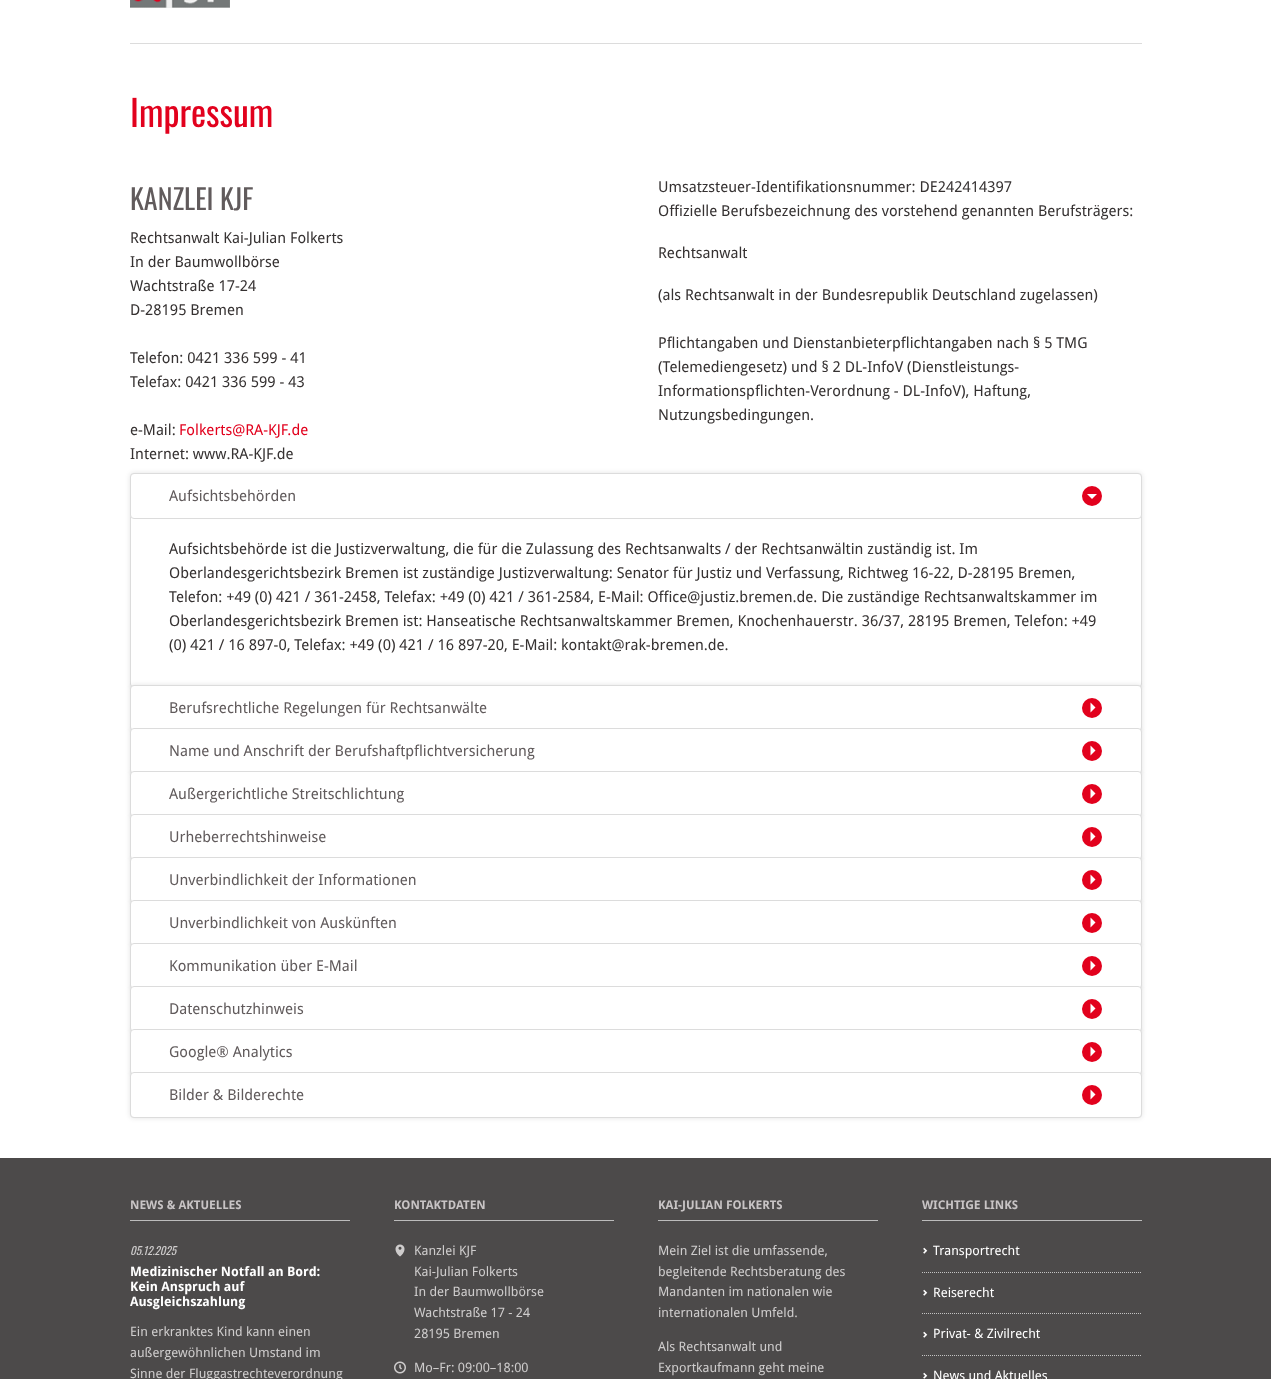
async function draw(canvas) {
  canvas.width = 1271;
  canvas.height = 1379;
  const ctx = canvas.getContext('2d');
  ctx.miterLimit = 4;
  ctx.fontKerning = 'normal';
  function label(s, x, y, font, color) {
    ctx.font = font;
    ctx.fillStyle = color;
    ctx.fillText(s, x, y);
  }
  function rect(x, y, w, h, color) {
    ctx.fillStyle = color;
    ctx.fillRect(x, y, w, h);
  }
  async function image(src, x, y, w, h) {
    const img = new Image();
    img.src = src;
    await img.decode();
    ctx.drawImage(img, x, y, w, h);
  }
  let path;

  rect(0, 0, 1271, 1379, '#fff');
  rect(130, 43, 1012, 1, '#dcdcdc');
  await image('assets/img1.png', 130, 0, 100, 8);
  label('Impressum', 130, 127, '36px Oswald', '#e2011d');
  label('KANZLEI KJF', 130, 210, '28px Oswald', '#615b5c');
  label('Rechtsanwalt Kai-Julian Folkerts', 130, 243, '15px Droid Sans', '#363232');
  label('In der Baumwollbörse', 130, 267, '15px Droid Sans', '#363232');
  label('Wachtstraße 17-24', 130, 291, '15px Droid Sans', '#363232');
  label('D-28195 Bremen', 130, 315, '15px Droid Sans', '#363232');
  label('Telefon: 0421 336 599 - 41', 130, 363, '15px Droid Sans', '#363232');
  label('Telefax: 0421 336 599 - 43', 130, 387, '15px Droid Sans', '#363232');
  label('e-Mail:', 130, 435, '15px Droid Sans', '#363232');
  label('Folkerts@RA-KJF.de', 179, 435, '15px Droid Sans', '#e2011d');
  label('Internet: www.RA-KJF.de', 130, 459, '15px Droid Sans', '#363232');
  label('Umsatzsteuer-Identifikationsnummer: DE242414397', 658, 192, '15px Droid Sans', '#363232');
  label('Offizielle Berufsbezeichnung des vorstehend genannten Berufsträgers:', 658, 216, '15px Droid Sans', '#363232');
  label('Rechtsanwalt', 658, 258, '15px Droid Sans', '#363232');
  label('(als Rechtsanwalt in der Bundesrepublik Deutschland zugelassen)', 658, 300, '15px Droid Sans', '#363232');
  label('Pflichtangaben und Dienstanbieterpflichtangaben nach § 5 TMG', 658, 348, '15px Droid Sans', '#363232');
  label('(Telemediengesetz) und § 2 DL-InfoV (Dienstleistungs-', 658, 372, '15px Droid Sans', '#363232');
  label('Informationspflichten-Verordnung - DL-InfoV), Haftung,', 658, 396, '15px Droid Sans', '#363232');
  label('Nutzungsbedingungen.', 658, 420, '15px Droid Sans', '#363232');
  ctx.save();
  path = new Path2D('M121 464H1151V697H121ZM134 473H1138C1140 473 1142 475 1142 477V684C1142 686 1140 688 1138 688H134C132 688 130 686 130 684V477C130 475 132 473 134 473Z');
  ctx.clip(path, 'evenodd');
  ctx.fillStyle = '#1a1a1a1f';
  ctx.filter = 'blur(2.5px)';
  ctx.beginPath();
  ctx.roundRect(130, 473, 1012, 215, 4);
  ctx.fill();
  ctx.filter = 'none';
  ctx.restore();
  ctx.beginPath();
  ctx.roundRect(130.5, 473.5, 1011, 214, 3.5);
  ctx.strokeStyle = '#dcdcdc';
  ctx.stroke();
  ctx.fillStyle = '#fff';
  ctx.beginPath();
  ctx.roundRect(130.5, 473.5, 1011, 45, 3.5);
  ctx.fill();
  ctx.stroke();
  label('Aufsichtsbehörden', 169, 501, '15px Droid Sans', '#615b5c');
  ctx.fillStyle = '#e2011d';
  ctx.beginPath();
  ctx.arc(1092, 496, 10, 0, 2 * Math.PI);
  ctx.fill();
  ctx.fillStyle = '#fff';
  path = new Path2D('M1087 494L1092 499L1097 494Z');
  ctx.fill(path);
  label('Aufsichtsbehörde ist die Justizverwaltung, die für die Zulassung des Rechtsanwalts / der Rechtsanwältin zuständig ist. Im', 169, 554, '15px Droid Sans', '#363232');
  label('Oberlandesgerichtsbezirk Bremen ist zuständige Justizverwaltung: Senator für Justiz und Verfassung, Richtweg 16-22, D-28195 Bremen,', 169, 578, '15px Droid Sans', '#363232');
  label('Telefon: +49 (0) 421 / 361-2458, Telefax: +49 (0) 421 / 361-2584, E-Mail: Office@justiz.bremen.de. Die zuständige Rechtsanwaltskammer im', 169, 602, '15px Droid Sans', '#363232');
  label('Oberlandesgerichtsbezirk Bremen ist: Hanseatische Rechtsanwaltskammer Bremen, Knochenhauerstr. 36/37, 28195 Bremen, Telefon: +49', 169, 626, '15px Droid Sans', '#363232');
  label('(0) 421 / 16 897-0, Telefax: +49 (0) 421 / 16 897-20, E-Mail: kontakt@rak-bremen.de.', 169, 650, '15px Droid Sans', '#363232');
  ctx.fillStyle = '#1a1a1a1f';
  ctx.filter = 'blur(2.5px)';
  ctx.beginPath();
  ctx.roundRect(130, 685, 1012, 46, 4);
  ctx.fill();
  ctx.filter = 'none';
  ctx.beginPath();
  ctx.roundRect(130.5, 685.5, 1011, 45, 3.5);
  ctx.stroke();
  ctx.filter = 'blur(2.5px)';
  ctx.beginPath();
  ctx.roundRect(130, 728, 1012, 46, 4);
  ctx.fill();
  ctx.filter = 'none';
  ctx.beginPath();
  ctx.roundRect(130.5, 728.5, 1011, 45, 3.5);
  ctx.stroke();
  ctx.fillStyle = '#fff';
  ctx.beginPath();
  ctx.roundRect(130.5, 685.5, 1011, 45, 3.5);
  ctx.fill();
  ctx.stroke();
  label('Berufsrechtliche Regelungen für Rechtsanwälte', 169, 713, '15px Droid Sans', '#615b5c');
  ctx.fillStyle = '#e2011d';
  ctx.beginPath();
  ctx.arc(1092, 708, 10, 0, 2 * Math.PI);
  ctx.fill();
  ctx.fillStyle = '#fff';
  path = new Path2D('M1090.5 712.5L1095.5 707.5L1090.5 702.5Z');
  ctx.fill(path);
  ctx.fillStyle = '#1a1a1a1f';
  ctx.filter = 'blur(2.5px)';
  ctx.beginPath();
  ctx.roundRect(130, 771, 1012, 46, 4);
  ctx.fill();
  ctx.filter = 'none';
  ctx.beginPath();
  ctx.roundRect(130.5, 771.5, 1011, 45, 3.5);
  ctx.stroke();
  ctx.fillStyle = '#fff';
  ctx.beginPath();
  ctx.roundRect(130.5, 728.5, 1011, 45, 3.5);
  ctx.fill();
  ctx.stroke();
  label('Name und Anschrift der Berufshaftpflichtversicherung', 169, 756, '15px Droid Sans', '#615b5c');
  ctx.fillStyle = '#e2011d';
  ctx.beginPath();
  ctx.arc(1092, 751, 10, 0, 2 * Math.PI);
  ctx.fill();
  ctx.fillStyle = '#fff';
  path = new Path2D('M1090.5 755.5L1095.5 750.5L1090.5 745.5Z');
  ctx.fill(path);
  ctx.fillStyle = '#1a1a1a1f';
  ctx.filter = 'blur(2.5px)';
  ctx.beginPath();
  ctx.roundRect(130, 814, 1012, 46, 4);
  ctx.fill();
  ctx.filter = 'none';
  ctx.beginPath();
  ctx.roundRect(130.5, 814.5, 1011, 45, 3.5);
  ctx.stroke();
  ctx.fillStyle = '#fff';
  ctx.beginPath();
  ctx.roundRect(130.5, 771.5, 1011, 45, 3.5);
  ctx.fill();
  ctx.stroke();
  label('Außergerichtliche Streitschlichtung', 169, 799, '15px Droid Sans', '#615b5c');
  ctx.fillStyle = '#e2011d';
  ctx.beginPath();
  ctx.arc(1092, 794, 10, 0, 2 * Math.PI);
  ctx.fill();
  ctx.fillStyle = '#fff';
  path = new Path2D('M1090.5 798.5L1095.5 793.5L1090.5 788.5Z');
  ctx.fill(path);
  ctx.fillStyle = '#1a1a1a1f';
  ctx.filter = 'blur(2.5px)';
  ctx.beginPath();
  ctx.roundRect(130, 857, 1012, 46, 4);
  ctx.fill();
  ctx.filter = 'none';
  ctx.beginPath();
  ctx.roundRect(130.5, 857.5, 1011, 45, 3.5);
  ctx.stroke();
  ctx.fillStyle = '#fff';
  ctx.beginPath();
  ctx.roundRect(130.5, 814.5, 1011, 45, 3.5);
  ctx.fill();
  ctx.stroke();
  label('Urheberrechtshinweise', 169, 842, '15px Droid Sans', '#615b5c');
  ctx.fillStyle = '#e2011d';
  ctx.beginPath();
  ctx.arc(1092, 837, 10, 0, 2 * Math.PI);
  ctx.fill();
  ctx.fillStyle = '#fff';
  path = new Path2D('M1090.5 841.5L1095.5 836.5L1090.5 831.5Z');
  ctx.fill(path);
  ctx.fillStyle = '#1a1a1a1f';
  ctx.filter = 'blur(2.5px)';
  ctx.beginPath();
  ctx.roundRect(130, 900, 1012, 46, 4);
  ctx.fill();
  ctx.filter = 'none';
  ctx.beginPath();
  ctx.roundRect(130.5, 900.5, 1011, 45, 3.5);
  ctx.stroke();
  ctx.fillStyle = '#fff';
  ctx.beginPath();
  ctx.roundRect(130.5, 857.5, 1011, 45, 3.5);
  ctx.fill();
  ctx.stroke();
  label('Unverbindlichkeit der Informationen', 169, 885, '15px Droid Sans', '#615b5c');
  ctx.fillStyle = '#e2011d';
  ctx.beginPath();
  ctx.arc(1092, 880, 10, 0, 2 * Math.PI);
  ctx.fill();
  ctx.fillStyle = '#fff';
  path = new Path2D('M1090.5 884.5L1095.5 879.5L1090.5 874.5Z');
  ctx.fill(path);
  ctx.fillStyle = '#1a1a1a1f';
  ctx.filter = 'blur(2.5px)';
  ctx.beginPath();
  ctx.roundRect(130, 943, 1012, 46, 4);
  ctx.fill();
  ctx.filter = 'none';
  ctx.beginPath();
  ctx.roundRect(130.5, 943.5, 1011, 45, 3.5);
  ctx.stroke();
  ctx.fillStyle = '#fff';
  ctx.beginPath();
  ctx.roundRect(130.5, 900.5, 1011, 45, 3.5);
  ctx.fill();
  ctx.stroke();
  label('Unverbindlichkeit von Auskünften', 169, 928, '15px Droid Sans', '#615b5c');
  ctx.fillStyle = '#e2011d';
  ctx.beginPath();
  ctx.arc(1092, 923, 10, 0, 2 * Math.PI);
  ctx.fill();
  ctx.fillStyle = '#fff';
  path = new Path2D('M1090.5 927.5L1095.5 922.5L1090.5 917.5Z');
  ctx.fill(path);
  ctx.fillStyle = '#1a1a1a1f';
  ctx.filter = 'blur(2.5px)';
  ctx.beginPath();
  ctx.roundRect(130, 986, 1012, 46, 4);
  ctx.fill();
  ctx.filter = 'none';
  ctx.beginPath();
  ctx.roundRect(130.5, 986.5, 1011, 45, 3.5);
  ctx.stroke();
  ctx.fillStyle = '#fff';
  ctx.beginPath();
  ctx.roundRect(130.5, 943.5, 1011, 45, 3.5);
  ctx.fill();
  ctx.stroke();
  label('Kommunikation über E-Mail', 169, 971, '15px Droid Sans', '#615b5c');
  ctx.fillStyle = '#e2011d';
  ctx.beginPath();
  ctx.arc(1092, 966, 10, 0, 2 * Math.PI);
  ctx.fill();
  ctx.fillStyle = '#fff';
  path = new Path2D('M1090.5 970.5L1095.5 965.5L1090.5 960.5Z');
  ctx.fill(path);
  ctx.fillStyle = '#1a1a1a1f';
  ctx.filter = 'blur(2.5px)';
  ctx.beginPath();
  ctx.roundRect(130, 1029, 1012, 46, 4);
  ctx.fill();
  ctx.filter = 'none';
  ctx.beginPath();
  ctx.roundRect(130.5, 1029.5, 1011, 45, 3.5);
  ctx.stroke();
  ctx.fillStyle = '#fff';
  ctx.beginPath();
  ctx.roundRect(130.5, 986.5, 1011, 45, 3.5);
  ctx.fill();
  ctx.stroke();
  label('Datenschutzhinweis', 169, 1014, '15px Droid Sans', '#615b5c');
  ctx.fillStyle = '#e2011d';
  ctx.beginPath();
  ctx.arc(1092, 1009, 10, 0, 2 * Math.PI);
  ctx.fill();
  ctx.fillStyle = '#fff';
  path = new Path2D('M1090.5 1013.5L1095.5 1008.5L1090.5 1003.5Z');
  ctx.fill(path);
  ctx.fillStyle = '#1a1a1a1f';
  ctx.filter = 'blur(2.5px)';
  ctx.beginPath();
  ctx.roundRect(130, 1072, 1012, 46, 4);
  ctx.fill();
  ctx.filter = 'none';
  ctx.beginPath();
  ctx.roundRect(130.5, 1072.5, 1011, 45, 3.5);
  ctx.stroke();
  ctx.fillStyle = '#fff';
  ctx.beginPath();
  ctx.roundRect(130.5, 1029.5, 1011, 45, 3.5);
  ctx.fill();
  ctx.stroke();
  label('Google® Analytics', 169, 1057, '15px Droid Sans', '#615b5c');
  ctx.fillStyle = '#e2011d';
  ctx.beginPath();
  ctx.arc(1092, 1052, 10, 0, 2 * Math.PI);
  ctx.fill();
  ctx.fillStyle = '#fff';
  path = new Path2D('M1090.5 1056.5L1095.5 1051.5L1090.5 1046.5Z');
  ctx.fill(path);
  ctx.beginPath();
  ctx.roundRect(130.5, 1072.5, 1011, 45, 3.5);
  ctx.fill();
  ctx.stroke();
  label('Bilder & Bilderechte', 169, 1100, '15px Droid Sans', '#615b5c');
  ctx.fillStyle = '#e2011d';
  ctx.beginPath();
  ctx.arc(1092, 1095, 10, 0, 2 * Math.PI);
  ctx.fill();
  ctx.fillStyle = '#fff';
  path = new Path2D('M1090.5 1099.5L1095.5 1094.5L1090.5 1089.5Z');
  ctx.fill(path);
  rect(0, 1158, 1271, 221, '#4c4a4a');
  rect(130, 1220, 220, 1, '#bcbcbc');
  label('NEWS & AKTUELLES', 130, 1209, 'bold 12px Droid Sans', '#c8c4c5');
  label('05.12.2025', 130, 1255, 'italic 11px Oswald', '#cecccc');
  label('Medizinischer Notfall an Bord:', 130, 1276, 'bold 13px Droid Sans', '#fff');
  label('Kein Anspruch auf', 130, 1291, 'bold 13px Droid Sans', '#fff');
  label('Ausgleichszahlung', 130, 1306, 'bold 13px Droid Sans', '#fff');
  label('Ein erkranktes Kind kann einen', 130, 1336, '13px Droid Sans', '#cecccc');
  label('außergewöhnlichen Umstand im', 130, 1357, '13px Droid Sans', '#cecccc');
  label('Sinne der Fluggastrechteverordnung', 130, 1378, '13px Droid Sans', '#cecccc');
  rect(394, 1220, 220, 1, '#bcbcbc');
  label('KONTAKTDATEN', 394, 1209, 'bold 12px Droid Sans', '#c8c4c5');
  await image('assets/img2.png', 395, 1244, 10, 13);
  label('Kanzlei KJF', 414, 1255, '13px Droid Sans', '#cecccc');
  label('Kai-Julian Folkerts', 414, 1276, '13px Droid Sans', '#cecccc');
  label('In der Baumwollbörse', 414, 1296, '13px Droid Sans', '#cecccc');
  label('Wachtstraße 17 - 24', 414, 1317, '13px Droid Sans', '#cecccc');
  label('28195 Bremen', 414, 1338, '13px Droid Sans', '#cecccc');
  await image('assets/img3.png', 394, 1361, 12, 13);
  label('Mo–Fr: 09:00–18:00', 414, 1372, '13px Droid Sans', '#cecccc');
  rect(658, 1220, 220, 1, '#bcbcbc');
  label('KAI-JULIAN FOLKERTS', 658, 1209, 'bold 12px Droid Sans', '#c8c4c5');
  label('Mein Ziel ist die umfassende,', 658, 1255, '13px Droid Sans', '#cecccc');
  label('begleitende Rechtsberatung des', 658, 1276, '13px Droid Sans', '#cecccc');
  label('Mandanten im nationalen wie', 658, 1296, '13px Droid Sans', '#cecccc');
  label('internationalen Umfeld.', 658, 1317, '13px Droid Sans', '#cecccc');
  label('Als Rechtsanwalt und', 658, 1351, '13px Droid Sans', '#cecccc');
  label('Exportkaufmann geht meine', 658, 1372, '13px Droid Sans', '#cecccc');
  rect(922, 1220, 220, 1, '#bcbcbc');
  label('WICHTIGE LINKS', 922, 1209, 'bold 12px Droid Sans', '#c8c4c5');
  await image('assets/img4.png', 923, 1247, 5, 7);
  label('Transportrecht', 933, 1255, '13px Droid Sans', '#fff');
  path = new Path2D('M922 1272.5H1142');
  ctx.strokeStyle = '#c3c3c3';
  ctx.setLineDash([1, 1]);
  ctx.stroke(path);
  await image('assets/img4.png', 923, 1289, 5, 7);
  label('Reiserecht', 933, 1297, '13px Droid Sans', '#fff');
  path = new Path2D('M922 1313.5H1142');
  ctx.stroke(path);
  await image('assets/img4.png', 923, 1331, 5, 7);
  label('Privat- & Zivilrecht', 933, 1338, '13px Droid Sans', '#fff');
  path = new Path2D('M922 1355.5H1142');
  ctx.stroke(path);
  await image('assets/img4.png', 923, 1372, 5, 7);
  label('News und Aktuelles', 933, 1380, '13px Droid Sans', '#fff');
}

draw(document.querySelector('canvas'));
